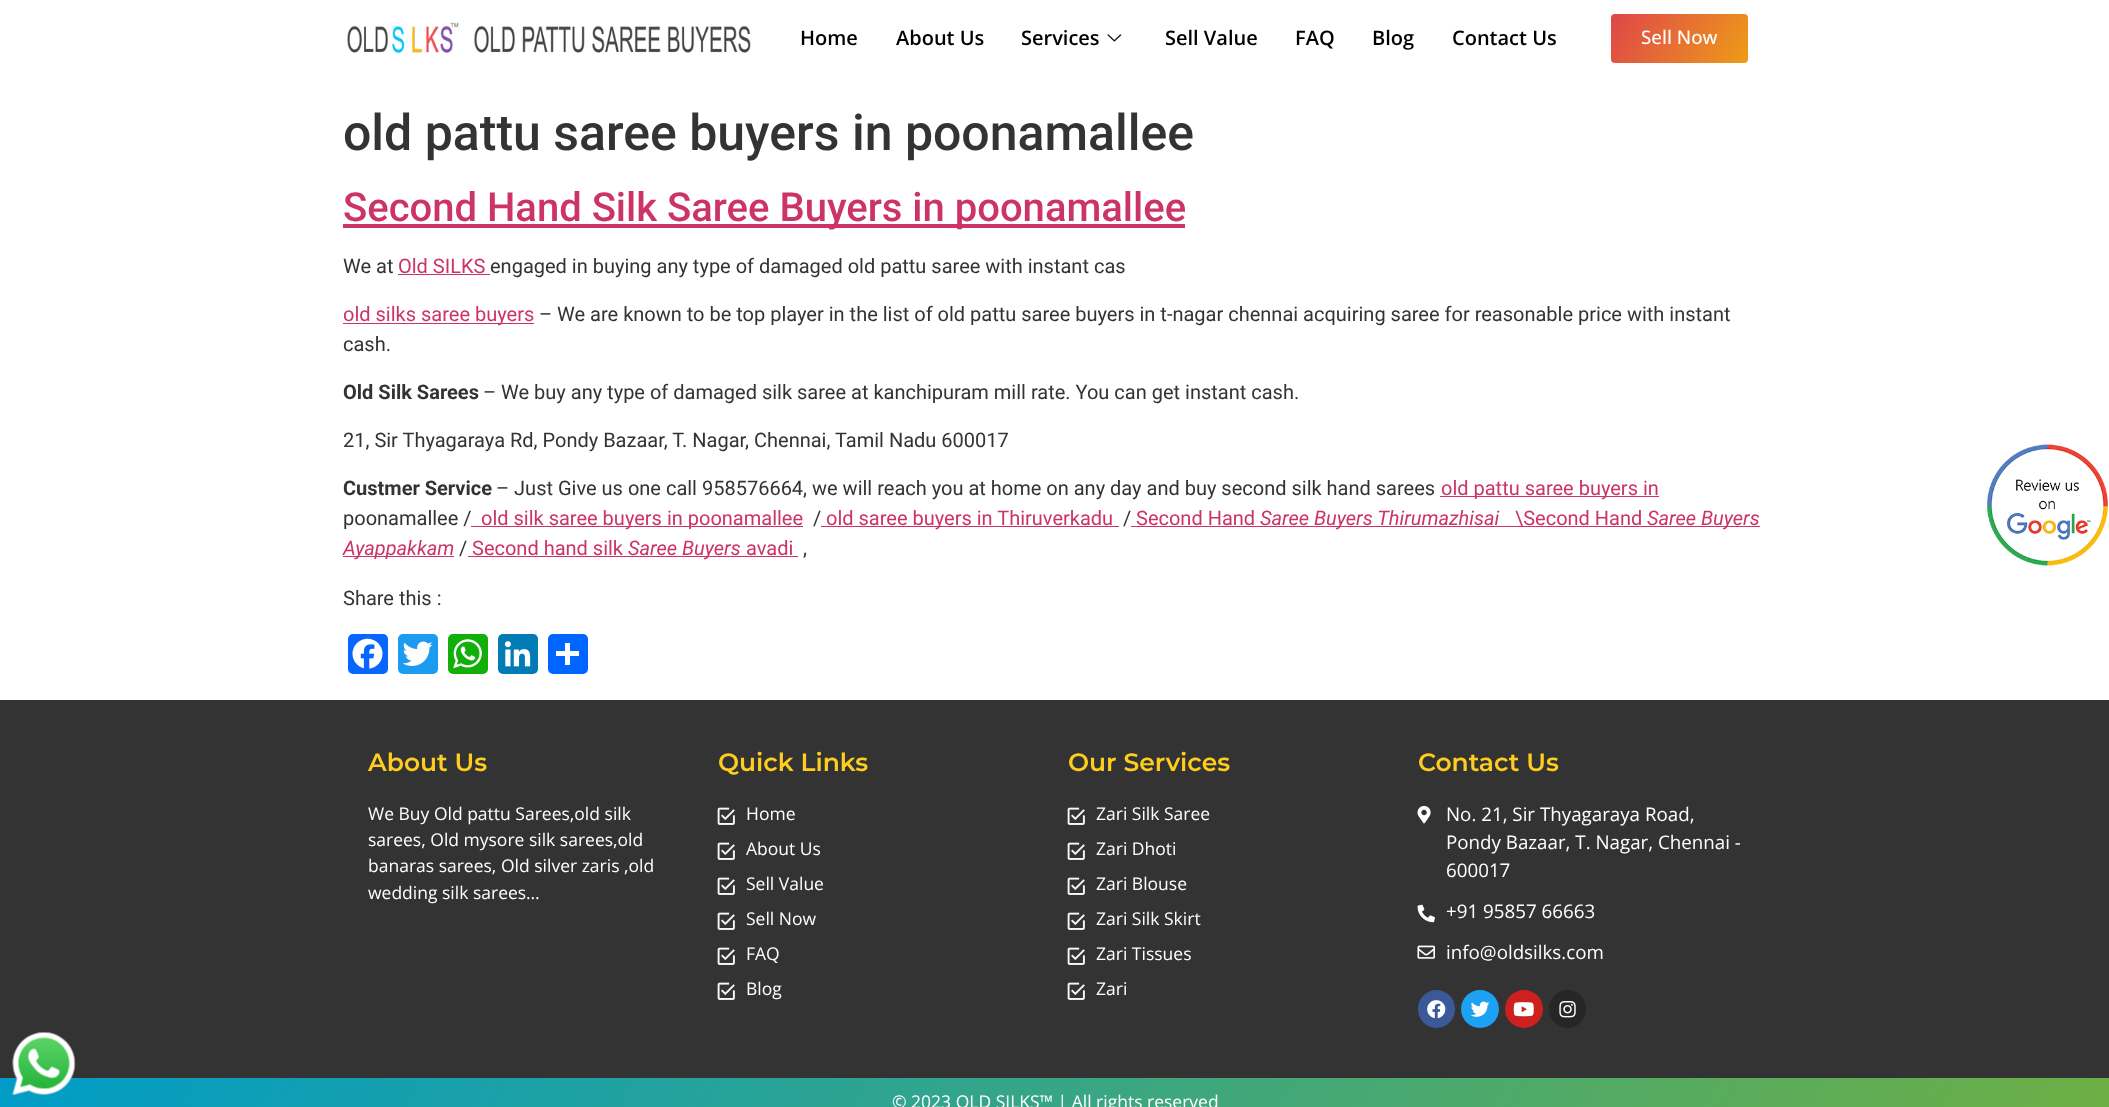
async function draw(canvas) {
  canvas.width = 2109;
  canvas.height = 1107;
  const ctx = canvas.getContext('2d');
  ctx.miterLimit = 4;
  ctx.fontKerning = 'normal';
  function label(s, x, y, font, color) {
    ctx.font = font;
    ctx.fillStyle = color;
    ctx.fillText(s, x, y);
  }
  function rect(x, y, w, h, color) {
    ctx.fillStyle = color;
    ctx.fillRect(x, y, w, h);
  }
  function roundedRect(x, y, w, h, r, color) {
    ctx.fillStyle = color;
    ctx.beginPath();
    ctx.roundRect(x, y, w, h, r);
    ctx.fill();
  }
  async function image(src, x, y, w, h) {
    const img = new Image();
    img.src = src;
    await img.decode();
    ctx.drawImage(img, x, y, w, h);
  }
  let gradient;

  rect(0, 0, 2109, 1107, '#fff');
  await image('assets/img1.png', 347, 22, 404, 31);
  label('Home', 800, 45, '600 20px Open Sans', '#000');
  label('About Us', 896, 45, '600 20px Open Sans', '#000');
  label('Services', 1021, 45, '600 20px Open Sans', '#000');
  await image('assets/img2.png', 1107, 34, 15, 8);
  label('Sell Value', 1165, 45, '600 20px Open Sans', '#000');
  label('FAQ', 1295, 45, '600 20px Open Sans', '#000');
  label('Blog', 1372, 45, '600 20px Open Sans', '#000');
  label('Contact Us', 1452, 45, '600 20px Open Sans', '#000');
  gradient = ctx.createLinearGradient(1618, 2.5, 1741, 74);
  gradient.addColorStop(0, '#df4649');
  gradient.addColorStop(1, '#ee9b19');
  ctx.fillStyle = gradient;
  ctx.beginPath();
  ctx.roundRect(1611, 14, 137, 49, 4);
  ctx.fill();
  label('Sell Now', 1641, 44, '500 18.75px Open Sans', '#fff');
  label('old pattu saree buyers in poonamallee', 343, 150, '500 50px Roboto', '#333');
  rect(343, 224, 842, 4, '#c36');
  label('Second Hand Silk Saree Buyers in poonamallee', 343, 221, '500 40px Roboto', '#c36');
  label('We at', 343, 273, '20px Roboto', '#333');
  label('Old SILKS', 398, 273, '20px Roboto', '#c36');
  rect(398, 274, 92, 1, '#c36');
  label('engaged in buying any type of damaged old pattu saree with instant cas', 490, 273, '20px Roboto', '#333');
  rect(343, 323, 191, 1, '#c36');
  label('old silks saree buyers', 343, 321, '20px Roboto', '#c36');
  label('– We are known to be top player in the list of old pattu saree buyers in t-nagar chennai acquiring saree for reasonable price with instant', 539, 321, '20px Roboto', '#333');
  label('cash.', 343, 351, '20px Roboto', '#333');
  label('Old Silk Sarees', 343, 399, 'bold 20px Roboto', '#333');
  label('– We buy any type of damaged silk saree at kanchipuram mill rate. You can get instant cash.', 483, 399, '20px Roboto', '#333');
  label('21, Sir Thyagaraya Rd, Pondy Bazaar, T. Nagar, Chennai, Tamil Nadu 600017', 343, 447, '20px Roboto', '#333');
  label('Custmer Service', 343, 495, 'bold 20px Roboto', '#333');
  label('– Just Give us one call 958576664, we will reach you at home on any day and buy second silk hand sarees', 496, 495, '20px Roboto', '#333');
  rect(1440, 496, 219, 1, '#c36');
  label('old pattu saree buyers in', 1441, 495, '20px Roboto', '#c36');
  label('poonamallee /', 343, 525, '20px Roboto', '#333');
  rect(471, 526, 332, 1, '#c36');
  label('old silk saree buyers in poonamallee', 481, 525, '20px Roboto', '#c36');
  label('/', 813, 525, '20px Roboto', '#333');
  rect(821, 526, 298, 1, '#c36');
  label('old saree buyers in Thiruverkadu', 826, 525, '20px Roboto', '#c36');
  label('/', 1123, 525, '20px Roboto', '#333');
  label('Second Hand', 1136, 525, '20px Roboto', '#c36');
  rect(1131, 526, 629, 1, '#c36');
  label('Saree Buyers Thirumazhisai', 1260, 525, 'italic 20px Roboto', '#c36');
  label('\\Second Hand', 1515, 525, '20px Roboto', '#c36');
  label('Saree Buyers', 1647, 525, 'italic 20px Roboto', '#c36');
  rect(343, 556, 111, 1, '#c36');
  label('Ayappakkam', 343, 555, 'italic 20px Roboto', '#c36');
  label('/', 459, 555, '20px Roboto', '#333');
  label('Second hand silk', 472, 555, '20px Roboto', '#c36');
  rect(468, 556, 330, 1, '#c36');
  label('Saree Buyers', 628, 555, 'italic 20px Roboto', '#c36');
  label('avadi', 746, 555, '20px Roboto', '#c36');
  label(',', 803, 555, '20px Roboto', '#333');
  label('Share this :', 343, 605, '20px Roboto', '#333');
  roundedRect(348, 634, 40, 40, 5, '#0866ff');
  await image('assets/img3.png', 352, 638, 31, 31);
  roundedRect(398, 634, 40, 40, 5, '#1d9bf0');
  await image('assets/img4.png', 402, 641, 31, 25);
  roundedRect(448, 634, 40, 40, 5, '#12af0a');
  await image('assets/img5.png', 453, 639, 29, 30);
  roundedRect(498, 634, 40, 40, 5, '#007bb5');
  await image('assets/img6.png', 504, 641, 27, 26);
  roundedRect(548, 634, 40, 40, 5, '#0166ff');
  rect(565, 643, 5, 22, '#fff');
  rect(556, 651, 23, 5, '#fff');
  rect(0, 700, 2109, 378, '#333');
  gradient = ctx.createLinearGradient(254, 638, 1856, 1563);
  gradient.addColorStop(0, '#009cc7');
  gradient.addColorStop(1, '#6eaf44');
  ctx.fillStyle = gradient;
  ctx.fillRect(0, 1078, 2109, 29);
  await image('assets/img7.png', 12, 1032, 64, 64);
  await image('assets/img8.png', 1987, 444, 121, 122);
  label('About Us', 368, 771, '600 25px Montserrat', '#ffcd1e');
  label('We Buy Old pattu Sarees,old silk', 368, 820, '17.5px Open Sans', '#fff');
  label('sarees, Old mysore silk sarees,old', 368, 846, '17.5px Open Sans', '#fff');
  label('banaras sarees, Old silver zaris ,old', 368, 872, '17.5px Open Sans', '#fff');
  label('wedding silk sarees…', 368, 899, '17.5px Open Sans', '#fff');
  label('Quick Links', 718, 771, '600 25px Montserrat', '#ffcd1e');
  await image('assets/img9.png', 717, 807, 18, 18);
  label('Home', 746, 820, '17.5px Open Sans', '#fff');
  await image('assets/img9.png', 717, 842, 18, 18);
  label('About Us', 746, 855, '17.5px Open Sans', '#fff');
  await image('assets/img9.png', 717, 877, 18, 18);
  label('Sell Value', 746, 890, '17.5px Open Sans', '#fff');
  await image('assets/img9.png', 717, 912, 18, 18);
  label('Sell Now', 746, 925, '17.5px Open Sans', '#fff');
  await image('assets/img9.png', 717, 947, 18, 18);
  label('FAQ', 746, 960, '17.5px Open Sans', '#fff');
  await image('assets/img9.png', 717, 982, 18, 18);
  label('Blog', 746, 995, '17.5px Open Sans', '#fff');
  label('Our Services', 1068, 771, '600 25px Montserrat', '#ffcd1e');
  await image('assets/img9.png', 1067, 807, 18, 18);
  label('Zari Silk Saree', 1096, 820, '17.5px Open Sans', '#fff');
  await image('assets/img9.png', 1067, 842, 18, 18);
  label('Zari Dhoti', 1096, 855, '17.5px Open Sans', '#fff');
  await image('assets/img9.png', 1067, 877, 18, 18);
  label('Zari Blouse', 1096, 890, '17.5px Open Sans', '#fff');
  await image('assets/img9.png', 1067, 912, 18, 18);
  label('Zari Silk Skirt', 1096, 925, '17.5px Open Sans', '#fff');
  await image('assets/img9.png', 1067, 947, 18, 18);
  label('Zari Tissues', 1096, 960, '17.5px Open Sans', '#fff');
  await image('assets/img9.png', 1067, 982, 18, 18);
  label('Zari', 1096, 995, '17.5px Open Sans', '#fff');
  label('Contact Us', 1418, 771, '600 25px Montserrat', '#ffcd1e');
  await image('assets/img10.png', 1417, 805, 14, 19);
  label('No. 21, Sir Thyagaraya Road,', 1446, 821, '18.75px Open Sans', '#fff');
  label('Pondy Bazaar, T. Nagar, Chennai -', 1446, 849, '18.75px Open Sans', '#fff');
  label('600017', 1446, 877, '18.75px Open Sans', '#fff');
  await image('assets/img11.png', 1417, 904, 18, 19);
  label('+91 95857 66663', 1446, 918, '18.75px Open Sans', '#fff');
  await image('assets/img12.png', 1417, 945, 18, 14);
  label('info@oldsilks.com', 1446, 959, '18.75px Open Sans', '#fff');
  roundedRect(1418, 990, 37, 38, 18.5, '#3b5998');
  await image('assets/img13.png', 1427, 1000, 19, 19);
  ctx.fillStyle = '#1da1f2';
  ctx.beginPath();
  ctx.arc(1480, 1009, 19, 0, 2 * Math.PI);
  ctx.fill();
  await image('assets/img14.png', 1470, 1001, 20, 16);
  ctx.fillStyle = '#cd201f';
  ctx.beginPath();
  ctx.arc(1524, 1009, 19, 0, 2 * Math.PI);
  ctx.fill();
  await image('assets/img15.png', 1513, 1002, 21, 15);
  roundedRect(1549, 990, 37, 38, 18.5, '#262626');
  await image('assets/img16.png', 1559, 1001, 17, 17);
  label('© 2023 OLD SILKS™ | All rights reserved', 892, 1108, '17.5px Open Sans', '#fff');
}

draw(document.querySelector('canvas'));
